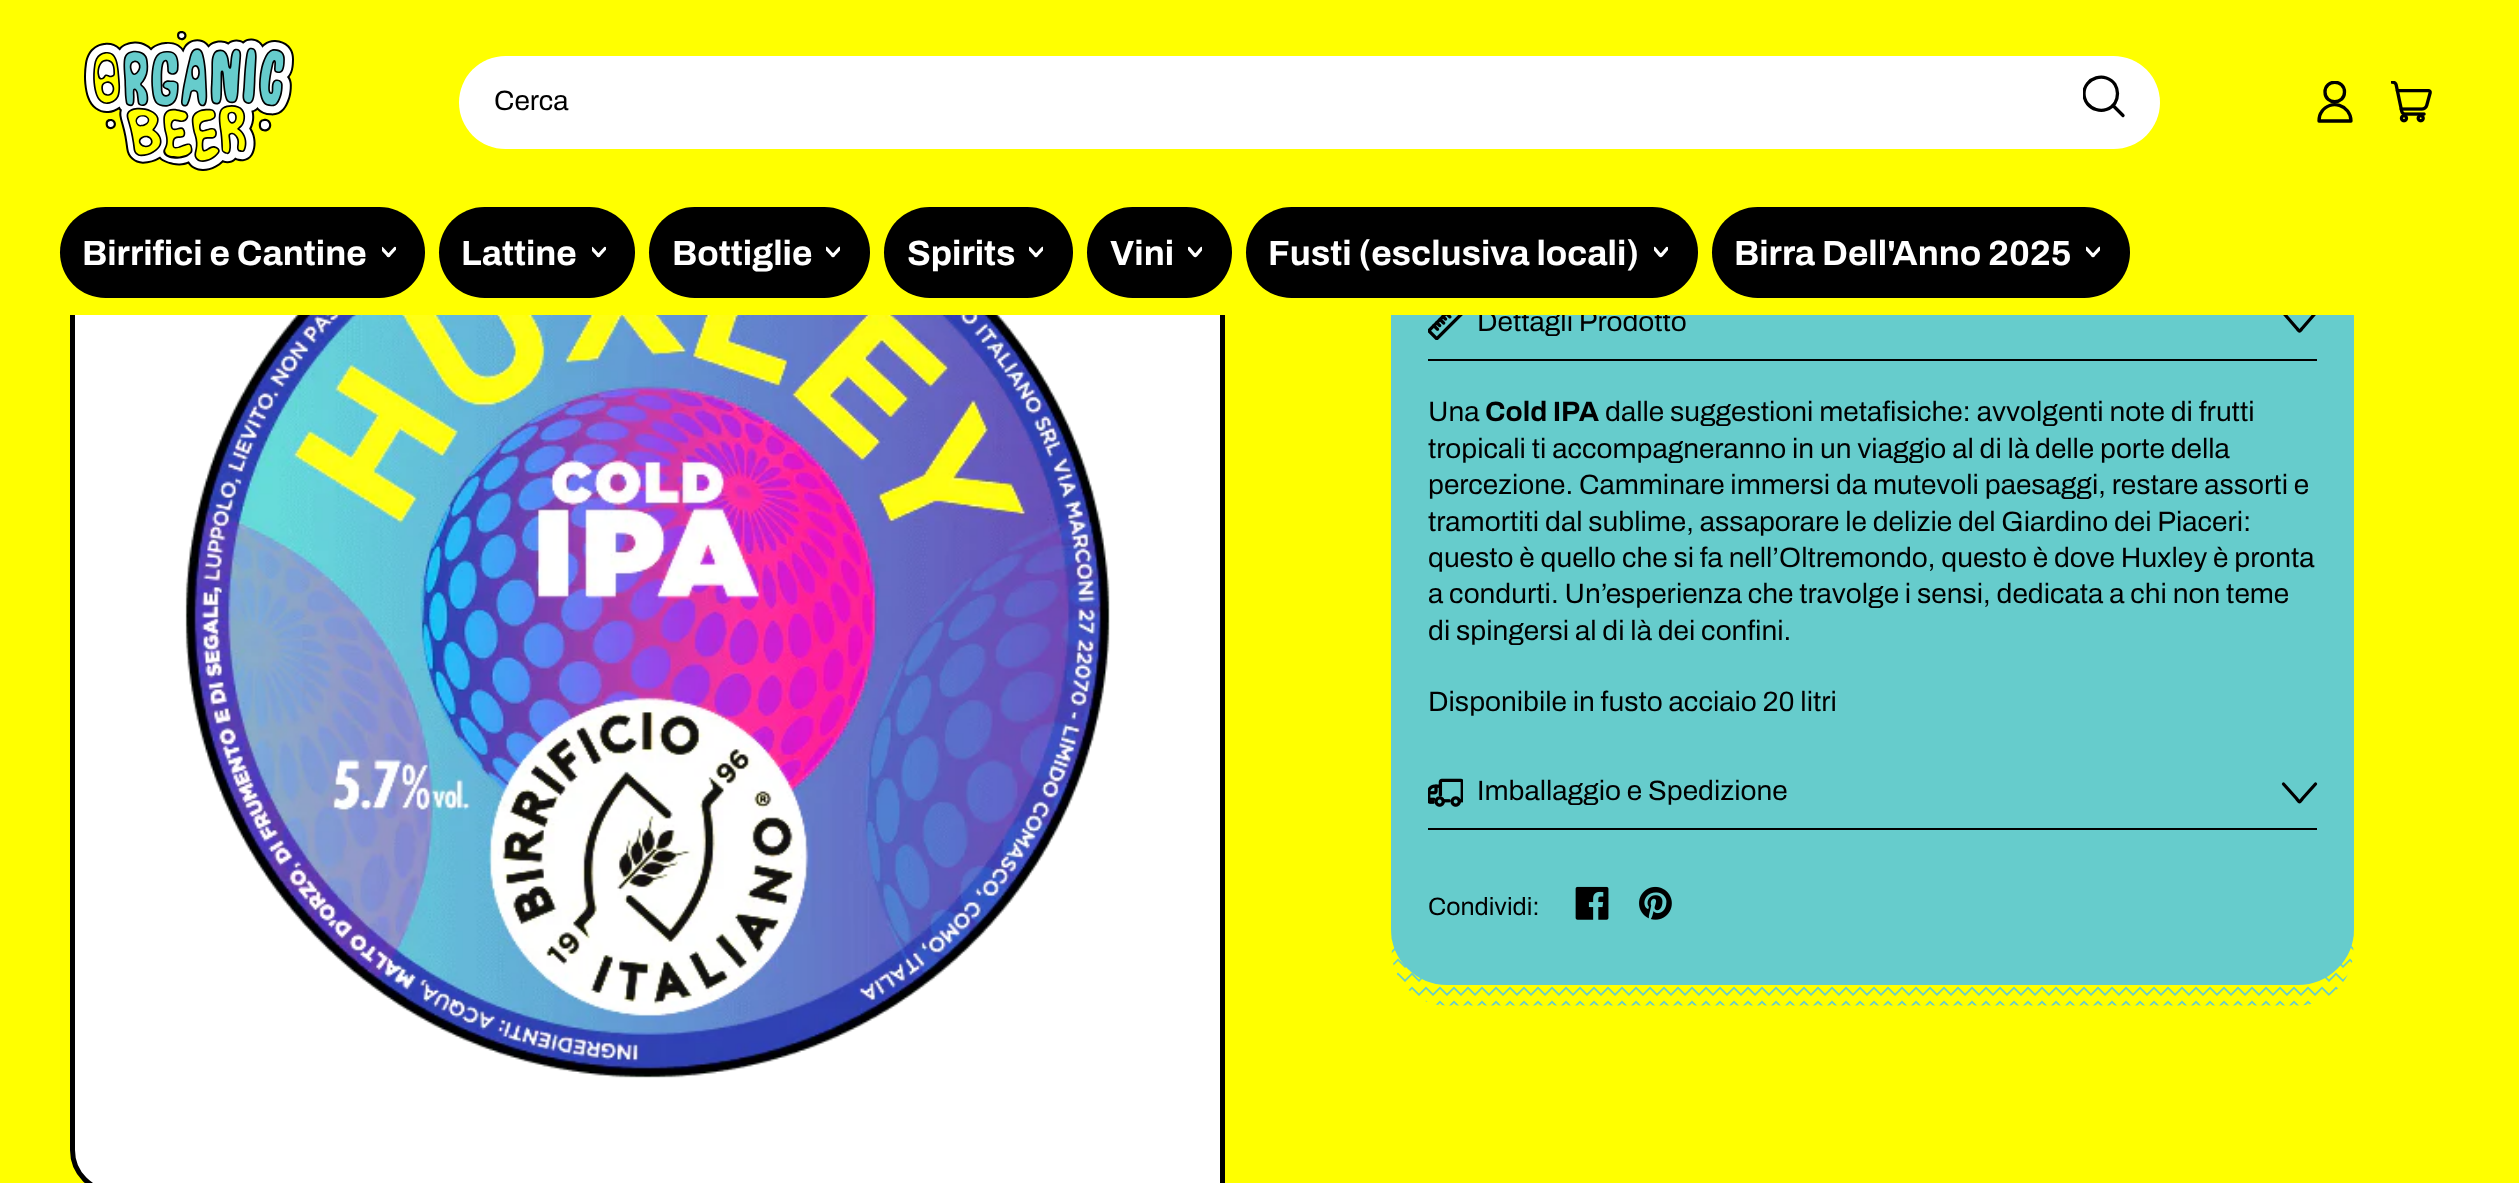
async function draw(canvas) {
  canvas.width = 2519;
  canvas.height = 1183;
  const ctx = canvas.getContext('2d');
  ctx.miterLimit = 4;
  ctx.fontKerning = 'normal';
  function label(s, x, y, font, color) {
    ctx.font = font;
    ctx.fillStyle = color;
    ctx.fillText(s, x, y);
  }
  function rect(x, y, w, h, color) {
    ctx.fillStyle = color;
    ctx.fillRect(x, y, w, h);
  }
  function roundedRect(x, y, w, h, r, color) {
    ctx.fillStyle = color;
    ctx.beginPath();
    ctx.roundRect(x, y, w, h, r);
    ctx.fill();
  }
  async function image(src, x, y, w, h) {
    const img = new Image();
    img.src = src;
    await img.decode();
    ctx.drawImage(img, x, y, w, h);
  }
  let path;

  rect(0, 0, 2519, 1183, '#ff0');
  ctx.fillStyle = '#fff';
  path = new Path2D('M114 41.5H1222.5V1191.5H114C91 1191.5 72.5 1173 72.5 1150V83C72.5 60 91 41.5 114 41.5Z');
  ctx.fill(path);
  ctx.strokeStyle = '#000';
  ctx.lineWidth = 5;
  ctx.stroke(path);
  await image('assets/img8.png', 1391, 933, 963, 73);
  ctx.fillStyle = '#6cc';
  ctx.beginPath();
  ctx.roundRect(1392, 251, 961, 733, 55);
  ctx.fill();
  ctx.strokeStyle = '#6cc';
  ctx.lineWidth = 2;
  ctx.stroke();
  label('Dettagli Prodotto', 1477, 331, '28px Archivo', '#000');
  path = new Path2D('M2283.5 313L2296.5 328C2300 332 2299 332 2302.5 328L2315.5 313');
  ctx.strokeStyle = '#000';
  ctx.lineWidth = 3.3;
  ctx.lineCap = 'round';
  ctx.lineJoin = 'round';
  ctx.stroke(path);
  rect(70, 39, 2284, 276, '#ff0');
  await image('assets/img1.png', 84, 31, 210, 140);
  roundedRect(459, 56, 1701, 93, 46.5, '#fff');
  label('Cerca', 494, 110, '28px Archivo', '#000');
  ctx.save();
  ctx.beginPath();
  ctx.rect(2083, 75, 42, 42);
  ctx.clip();
  path = new Path2D('M2084 93.5C2084 110 2106 116.5 2115 103C2116.5 100.5 2117.5 97 2117.5 93.5C2117.5 90.5 2116.5 87 2115 84.5C2106 71 2084 77.5 2084 93.5Z');
  ctx.stroke(path);
  ctx.restore();
  path = new Path2D('M2123 115.5L2113 105.5');
  ctx.stroke(path);
  ctx.save();
  ctx.beginPath();
  ctx.rect(2314, 81, 42, 42);
  ctx.clip();
  path = new Path2D('M2325 92C2325 105 2344.5 105 2344.5 92C2344.5 79 2325 79 2325 92Z');
  ctx.stroke(path);
  ctx.restore();
  path = new Path2D('M2319 121C2319 117.5 2319.5 114.5 2321.5 112C2330 98.5 2351 105 2351 121Z');
  ctx.stroke(path);
  await image('assets/img2.png', 2391, 81, 41, 42);
  roundedRect(60, 207, 365, 91, 45.5, '#000');
  label('Birrifici e Cantine', 82, 265, 'bold 35px Archivo', '#fff');
  ctx.save();
  ctx.beginPath();
  ctx.rect(382, 245, 14, 14);
  ctx.clip();
  path = new Path2D('M382 248.5L387.5 254.5C388.5 256 388.5 256 389.5 254.5L395 248.5');
  ctx.strokeStyle = '#fff';
  ctx.stroke(path);
  ctx.restore();
  roundedRect(439, 207, 196, 91, 45.5, '#000');
  label('Lattine', 461, 265, 'bold 35px Archivo', '#fff');
  ctx.save();
  ctx.beginPath();
  ctx.rect(592, 245, 14, 14);
  ctx.clip();
  path = new Path2D('M592 248.5L597.5 254.5C598.5 256 598.5 256 599.5 254.5L605 248.5');
  ctx.strokeStyle = '#fff';
  ctx.stroke(path);
  ctx.restore();
  roundedRect(649, 207, 221, 91, 45.5, '#000');
  label('Bottiglie', 672, 265, 'bold 35px Archivo', '#fff');
  ctx.save();
  ctx.beginPath();
  ctx.rect(826, 245, 14, 14);
  ctx.clip();
  path = new Path2D('M826.5 248.5L832 254.5C833 256 833 256 834 254.5L839.5 248.5');
  ctx.strokeStyle = '#fff';
  ctx.stroke(path);
  ctx.restore();
  roundedRect(884, 207, 189, 91, 45.5, '#000');
  label('Spirits', 907, 265, 'bold 35px Archivo', '#fff');
  ctx.save();
  ctx.beginPath();
  ctx.rect(1029, 245, 14, 14);
  ctx.clip();
  path = new Path2D('M1029.5 248.5L1035 254.5C1036 256 1036 256 1037 254.5L1042.5 248.5');
  ctx.strokeStyle = '#fff';
  ctx.stroke(path);
  ctx.restore();
  roundedRect(1087, 207, 145, 91, 45.5, '#000');
  label('Vini', 1110, 265, 'bold 35px Archivo', '#fff');
  ctx.save();
  ctx.beginPath();
  ctx.rect(1188, 245, 14, 14);
  ctx.clip();
  path = new Path2D('M1189 248.5L1194 254.5C1195.5 256 1195 256 1196.5 254.5L1201.5 248.5');
  ctx.strokeStyle = '#fff';
  ctx.stroke(path);
  ctx.restore();
  roundedRect(1246, 207, 452, 91, 45.5, '#000');
  label('Fusti (esclusiva locali)', 1268, 265, 'bold 35px Archivo', '#fff');
  ctx.save();
  ctx.beginPath();
  ctx.rect(1654, 245, 14, 14);
  ctx.clip();
  path = new Path2D('M1654.5 248.5L1659.5 254.5C1661 256 1660.5 256 1662 254.5L1667 248.5');
  ctx.strokeStyle = '#fff';
  ctx.stroke(path);
  ctx.restore();
  roundedRect(1712, 207, 418, 91, 45.5, '#000');
  label('Birra Dell\'Anno 2025', 1734, 265, 'bold 35px Archivo', '#fff');
  ctx.save();
  ctx.beginPath();
  ctx.rect(2086, 245, 14, 14);
  ctx.clip();
  path = new Path2D('M2086.5 248.5L2092 254.5C2093 256 2093 256 2094 254.5L2099.5 248.5');
  ctx.strokeStyle = '#fff';
  ctx.stroke(path);
  ctx.restore();
  await image('assets/img3.png', 185, 315, 925, 763);
  rect(1428, 359, 889, 2, '#000');
  await image('assets/img4.png', 1428, 315, 35, 25);
  label('Una', 1428, 421, '28px Archivo', '#000');
  label('Cold IPA', 1485, 421, 'bold 28px Archivo', '#000');
  label('dalle suggestioni metafisiche: avvolgenti note di frutti', 1605, 421, '28px Archivo', '#000');
  label('tropicali ti accompagneranno in un viaggio al di là delle porte della', 1428, 458, '28px Archivo', '#000');
  label('percezione. Camminare immersi da mutevoli paesaggi, restare assorti e', 1428, 494, '28px Archivo', '#000');
  label('tramortiti dal sublime, assaporare le delizie del Giardino dei Piaceri:', 1428, 531, '28px Archivo', '#000');
  label('questo è quello che si fa nell’Oltremondo, questo è dove Huxley è pronta', 1428, 567, '28px Archivo', '#000');
  label('a condurti. Un’esperienza che travolge i sensi, dedicata a chi non teme', 1428, 603, '28px Archivo', '#000');
  label('di spingersi al di là dei confini.', 1428, 640, '28px Archivo', '#000');
  label('Disponibile in fusto acciaio 20 litri', 1428, 711, '28px Archivo', '#000');
  rect(1428, 828, 889, 2, '#000');
  await image('assets/img5.png', 1428, 778, 35, 29);
  label('Imballaggio e Spedizione', 1477, 800, '28px Archivo', '#000');
  path = new Path2D('M2283.5 784L2296.5 798.5C2300 803 2299 803 2302.5 798.5L2315.5 784');
  ctx.stroke(path);
  label('Condividi:', 1428, 915, '25px Archivo', '#000');
  await image('assets/img6.png', 1575, 886, 34, 34);
  await image('assets/img7.png', 1639, 886, 33, 34);
}

draw(document.querySelector('canvas'));
